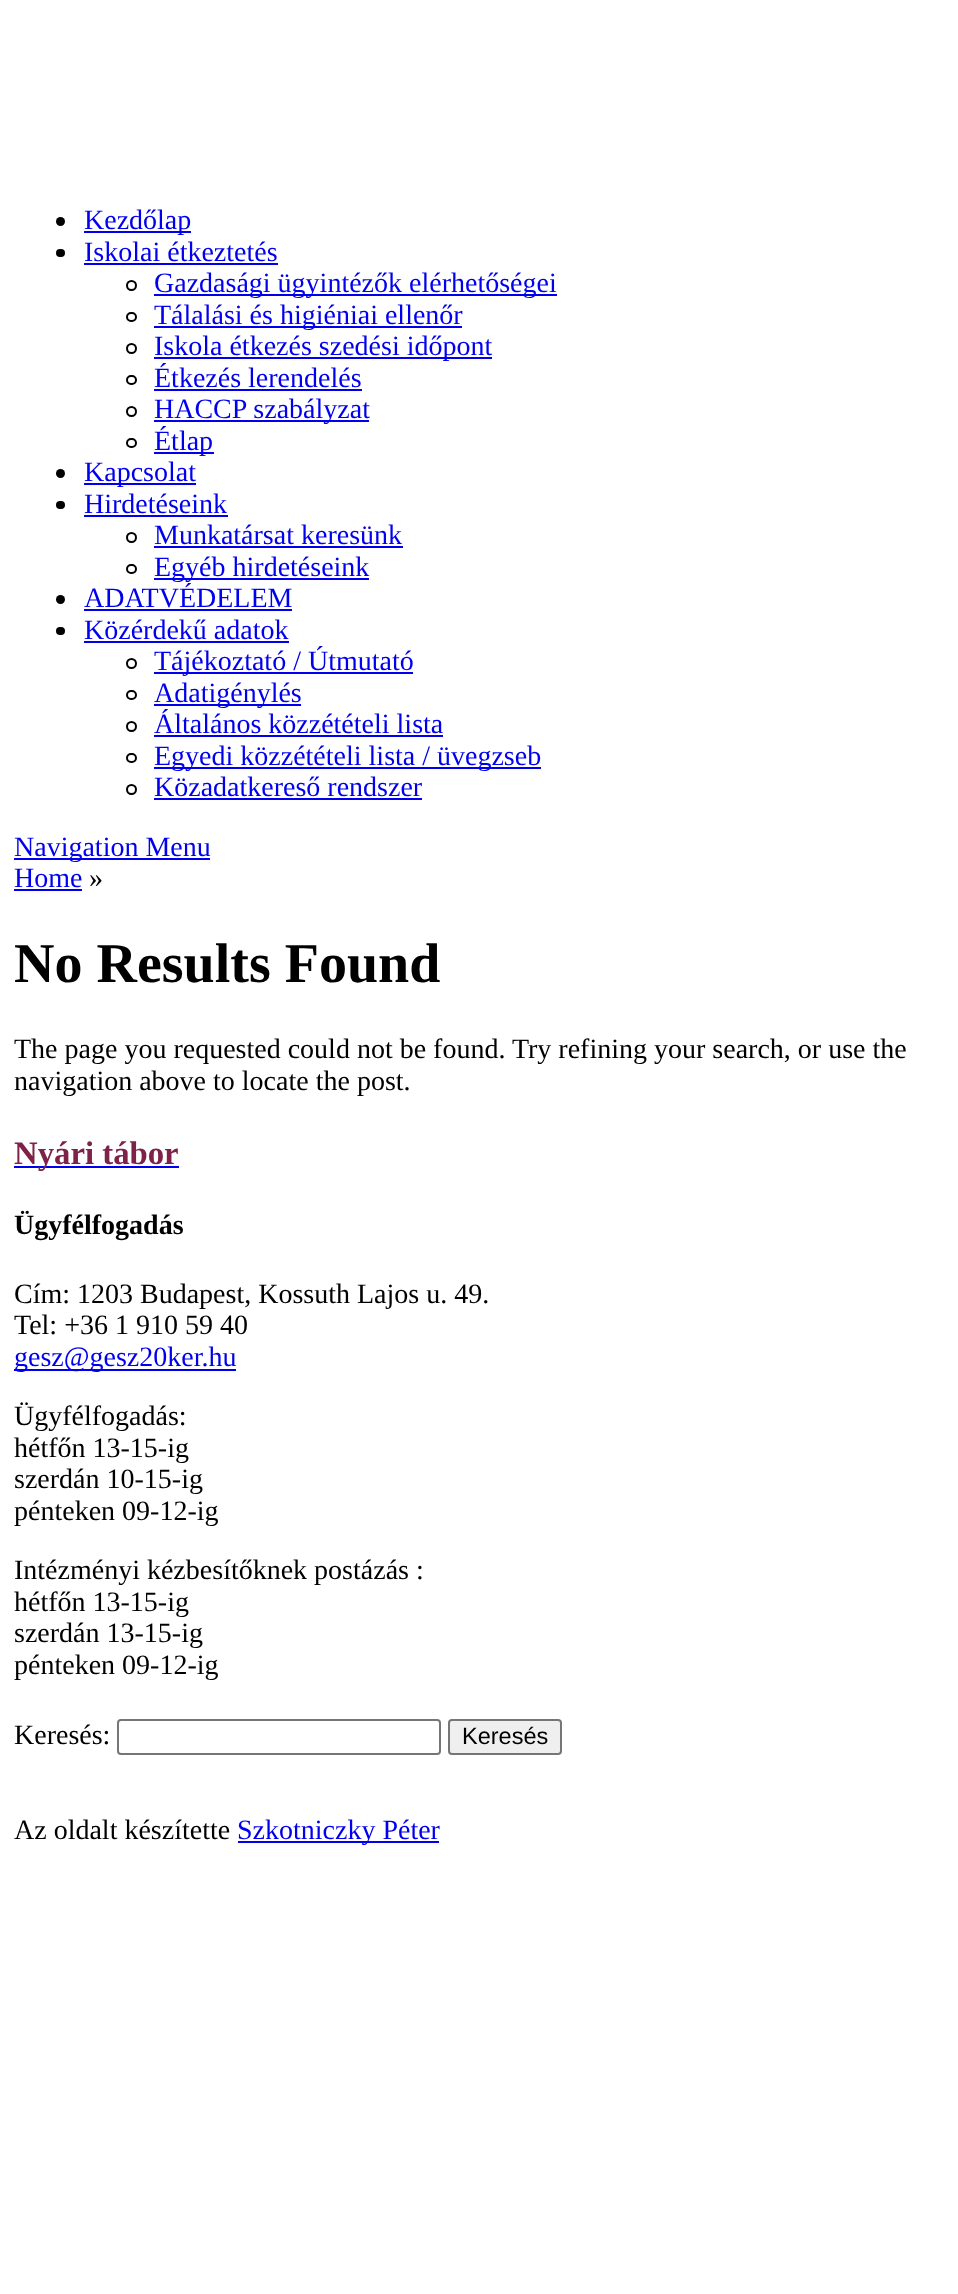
async function draw(canvas) {
  canvas.width = 958;
  canvas.height = 2294;
  const ctx = canvas.getContext('2d');
  ctx.miterLimit = 4;
  ctx.fontKerning = 'normal';
  function label(s, x, y, font, color) {
    ctx.font = font;
    ctx.fillStyle = color;
    ctx.fillText(s, x, y);
  }
  function rect(x, y, w, h, color) {
    ctx.fillStyle = color;
    ctx.fillRect(x, y, w, h);
  }
  function roundedRect(x, y, w, h, r, color) {
    ctx.fillStyle = color;
    ctx.beginPath();
    ctx.roundRect(x, y, w, h, r);
    ctx.fill();
  }

  rect(0, 0, 958, 2294, '#fff');
  ctx.fillStyle = '#000';
  ctx.beginPath();
  ctx.arc(60.5, 221.5, 4.5, 0, 2 * Math.PI);
  ctx.fill();
  rect(84, 231, 107, 2, '#00e');
  label('Kezdőlap', 84, 229, '28px Liberation Serif', '#00e');
  roundedRect(56, 249, 9, 8, 4, '#000');
  label('Iskolai étkeztetés', 84, 261, '28px Liberation Serif', '#00e');
  rect(84, 263, 194, 2, '#00e');
  ctx.beginPath();
  ctx.arc(131.5, 285.5, 4.5, 0, 2 * Math.PI);
  ctx.strokeStyle = '#000';
  ctx.lineWidth = 2;
  ctx.stroke();
  rect(154, 294, 403, 2, '#00e');
  label('Gazdasági ügyintézők elérhetőségei', 154, 292, '28px Liberation Serif', '#00e');
  ctx.beginPath();
  ctx.roundRect(127, 313, 9, 8, 4);
  ctx.stroke();
  rect(154, 326, 308, 2, '#00e');
  label('Tálalási és higiéniai ellenőr', 154, 324, '28px Liberation Serif', '#00e');
  ctx.beginPath();
  ctx.arc(131.5, 348.5, 4.5, 0, 2 * Math.PI);
  ctx.stroke();
  rect(154, 357, 338, 2, '#00e');
  label('Iskola étkezés szedési időpont', 154, 355, '28px Liberation Serif', '#00e');
  ctx.beginPath();
  ctx.roundRect(127, 376, 9, 8, 4);
  ctx.stroke();
  label('Étkezés lerendelés', 154, 387, '28px Liberation Serif', '#00e');
  rect(154, 389, 208, 2, '#00e');
  ctx.beginPath();
  ctx.arc(131.5, 411.5, 4.5, 0, 2 * Math.PI);
  ctx.stroke();
  rect(154, 420, 215, 2, '#00e');
  label('HACCP szabályzat', 154, 418, '28px Liberation Serif', '#00e');
  ctx.beginPath();
  ctx.roundRect(127, 439, 9, 8, 4);
  ctx.stroke();
  rect(154, 452, 60, 2, '#00e');
  label('Étlap', 154, 450, '28px Liberation Serif', '#00e');
  ctx.fillStyle = '#000';
  ctx.beginPath();
  ctx.arc(60.5, 473.5, 4.5, 0, 2 * Math.PI);
  ctx.fill();
  rect(84, 483, 112, 2, '#00e');
  label('Kapcsolat', 84, 481, '28px Liberation Serif', '#00e');
  roundedRect(56, 501, 9, 8, 4, '#000');
  label('Hirdetéseink', 84, 513, '28px Liberation Serif', '#00e');
  rect(84, 515, 144, 2, '#00e');
  ctx.beginPath();
  ctx.arc(131.5, 537.5, 4.5, 0, 2 * Math.PI);
  ctx.stroke();
  label('Munkatársat keresünk', 154, 544, '28px Liberation Serif', '#00e');
  rect(154, 546, 249, 2, '#00e');
  ctx.beginPath();
  ctx.roundRect(127, 565, 9, 8, 4);
  ctx.stroke();
  rect(154, 578, 215, 2, '#00e');
  label('Egyéb hirdetéseink', 154, 576, '28px Liberation Serif', '#00e');
  ctx.fillStyle = '#000';
  ctx.beginPath();
  ctx.arc(60.5, 599.5, 4.5, 0, 2 * Math.PI);
  ctx.fill();
  label('ADATVÉDELEM', 84, 607, '28px Liberation Serif', '#00e');
  rect(84, 609, 208, 2, '#00e');
  roundedRect(56, 627, 9, 8, 4, '#000');
  label('Közérdekű adatok', 84, 639, '28px Liberation Serif', '#00e');
  rect(84, 641, 205, 2, '#00e');
  ctx.beginPath();
  ctx.arc(131.5, 663.5, 4.5, 0, 2 * Math.PI);
  ctx.stroke();
  rect(154, 672, 259, 2, '#00e');
  label('Tájékoztató / Útmutató', 154, 670, '28px Liberation Serif', '#00e');
  ctx.beginPath();
  ctx.roundRect(127, 691, 9, 8, 4);
  ctx.stroke();
  rect(154, 704, 147, 2, '#00e');
  label('Adatigénylés', 154, 702, '28px Liberation Serif', '#00e');
  ctx.beginPath();
  ctx.arc(131.5, 726.5, 4.5, 0, 2 * Math.PI);
  ctx.stroke();
  label('Általános közzétételi lista', 154, 733, '28px Liberation Serif', '#00e');
  rect(154, 735, 289, 2, '#00e');
  ctx.beginPath();
  ctx.roundRect(127, 754, 9, 8, 4);
  ctx.stroke();
  rect(154, 767, 387, 2, '#00e');
  label('Egyedi közzétételi lista / üvegzseb', 154, 765, '28px Liberation Serif', '#00e');
  ctx.beginPath();
  ctx.arc(131.5, 789.5, 4.5, 0, 2 * Math.PI);
  ctx.stroke();
  label('Közadatkereső rendszer', 154, 796, '28px Liberation Serif', '#00e');
  rect(154, 798, 268, 2, '#00e');
  rect(14, 858, 196, 2, '#00e');
  label('Navigation Menu', 14, 856, '28px Liberation Serif', '#00e');
  label('Home', 14, 887, '28px Liberation Serif', '#00e');
  rect(14, 889, 68, 2, '#00e');
  label('»', 89, 887, '28px Liberation Serif', '#000');
  label('No Results Found', 14, 982, 'bold 56px Liberation Serif', '#000');
  label('The page you requested could not be found. Try refining your search, or use the', 14, 1058, '28px Liberation Serif', '#000');
  label('navigation above to locate the post.', 14, 1090, '28px Liberation Serif', '#000');
  rect(14, 1166, 165, 2, '#00e');
  label('Nyári tábor', 14, 1164, 'bold 32.75px Liberation Serif', '#7f224a');
  label('Ügyfélfogadás', 14, 1234, 'bold 28px Liberation Serif', '#000');
  label('Cím: 1203 Budapest, Kossuth Lajos u. 49.', 14, 1303, '28px Liberation Serif', '#000');
  label('Tel: +36 1 910 59 40', 14, 1334, '28px Liberation Serif', '#000');
  rect(14, 1369, 222, 2, '#00e');
  label('gesz@gesz20ker.hu', 14, 1366, '28px Liberation Serif', '#00e');
  label('Ügyfélfogadás:', 14, 1425, '28px Liberation Serif', '#000');
  label('hétfőn 13-15-ig', 14, 1457, '28px Liberation Serif', '#000');
  label('szerdán 10-15-ig', 14, 1488, '28px Liberation Serif', '#000');
  label('pénteken 09-12-ig', 14, 1520, '28px Liberation Serif', '#000');
  label('Intézményi kézbesítőknek postázás :', 14, 1579, '28px Liberation Serif', '#000');
  label('hétfőn 13-15-ig', 14, 1611, '28px Liberation Serif', '#000');
  label('szerdán 13-15-ig', 14, 1642, '28px Liberation Serif', '#000');
  label('pénteken 09-12-ig', 14, 1674, '28px Liberation Serif', '#000');
  label('Keresés:', 14, 1744, '28px Liberation Serif', '#000');
  ctx.beginPath();
  ctx.roundRect(118, 1720, 322, 34, 3);
  ctx.strokeStyle = '#767676';
  ctx.stroke();
  ctx.fillStyle = '#efefef';
  ctx.beginPath();
  ctx.roundRect(449, 1720, 112, 34, 3);
  ctx.fill();
  ctx.stroke();
  label('Keresés', 462, 1744, '23.5px Liberation Sans', '#000');
  label('Az oldalt készítette', 14, 1839, '28px Liberation Serif', '#000');
  rect(238, 1841, 201, 2, '#00e');
  label('Szkotniczky Péter', 237, 1839, '28px Liberation Serif', '#00e');
}

draw(document.querySelector('canvas'));
